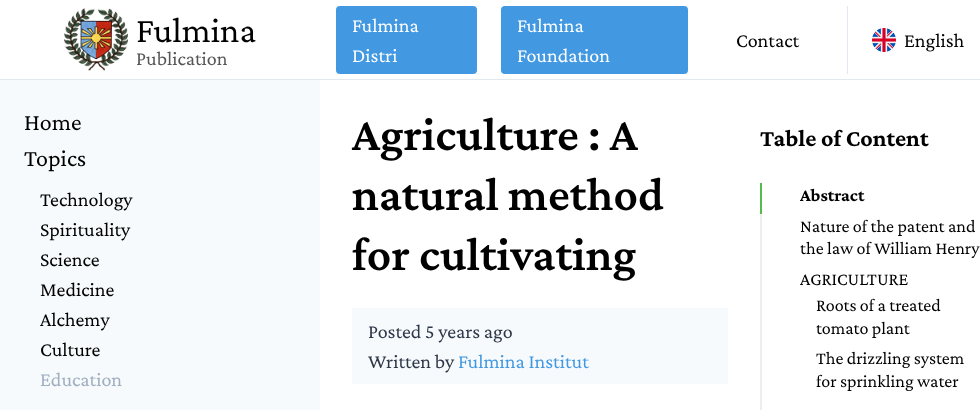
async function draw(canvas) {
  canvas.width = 980;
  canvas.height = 410;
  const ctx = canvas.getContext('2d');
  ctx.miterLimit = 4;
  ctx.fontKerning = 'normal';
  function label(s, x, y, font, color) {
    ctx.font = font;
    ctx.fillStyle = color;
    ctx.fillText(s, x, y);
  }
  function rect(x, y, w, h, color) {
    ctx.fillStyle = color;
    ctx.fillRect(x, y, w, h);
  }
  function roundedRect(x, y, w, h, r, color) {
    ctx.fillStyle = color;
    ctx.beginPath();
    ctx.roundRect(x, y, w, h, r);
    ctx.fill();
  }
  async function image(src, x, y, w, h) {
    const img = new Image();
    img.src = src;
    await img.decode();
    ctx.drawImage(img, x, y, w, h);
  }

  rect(0, 0, 980, 410, '#fff');
  await image('assets/img1.png', 64, 8, 64, 63);
  label('Fulmina', 136, 42, '36px Crimson Pro', '#000');
  label('Publication', 136, 65, '20px Crimson Pro', '#555');
  rect(0, 80, 320, 330, '#f7fafc');
  label('Home', 24, 130, '24px Crimson Pro', '#000');
  label('Topics', 24, 166, '24px Crimson Pro', '#000');
  label('Technology', 40, 206, '20px Crimson Pro', '#000');
  label('Spirituality', 40, 236, '20px Crimson Pro', '#000');
  label('Science', 40, 266, '20px Crimson Pro', '#000');
  label('Medicine', 40, 296, '20px Crimson Pro', '#000');
  label('Alchemy', 40, 326, '20px Crimson Pro', '#000');
  label('Culture', 40, 356, '20px Crimson Pro', '#000');
  label('Education', 40, 386, '20px Crimson Pro', '#a0aec0');
  rect(0, 79, 980, 1, '#e2e8f0');
  rect(847, 6, 1, 68, '#e2e8f0');
  roundedRect(336, 6, 141, 68, 4, '#4299e1');
  label('Fulmina', 352, 32, '20px Crimson Pro', '#fff');
  label('Distri', 352, 62, '20px Crimson Pro', '#fff');
  roundedRect(501, 6, 187, 68, 4, '#4299e1');
  label('Fulmina', 517, 32, '20px Crimson Pro', '#fff');
  label('Foundation', 517, 62, '20px Crimson Pro', '#fff');
  label('Contact', 736, 47, '20px Crimson Pro', '#000');
  await image('assets/img2.png', 872, 28, 24, 24);
  label('English', 904, 47, '20px Crimson Pro', '#000');
  label('Agriculture : A', 352, 150, '600 48px Crimson Pro', '#000');
  label('natural method', 352, 210, '600 48px Crimson Pro', '#000');
  label('for cultivating', 352, 270, '600 48px Crimson Pro', '#000');
  rect(352, 308, 376, 76, '#f7fafc');
  label('Posted 5 years ago', 368, 338, '20px Crimson Pro', '#2d3748');
  label('Written by', 368, 368, '20px Crimson Pro', '#2d3748');
  label('Fulmina Institut', 458, 368, '20px Crimson Pro', '#4299e1');
  label('Table of Content', 760, 146, 'bold 24px Crimson Pro', '#000');
  rect(760, 183, 2, 31, '#54bc4b');
  label('Abstract', 800, 201, 'bold 18px Crimson Pro', '#000');
  rect(760, 214, 2, 196, '#eee');
  label('Nature of the patent and', 800, 232, '18px Crimson Pro', '#000');
  label('the law of William Henry', 800, 254, '18px Crimson Pro', '#000');
  label('AGRICULTURE', 800, 285, '18px Crimson Pro', '#000');
  label('Roots of a treated', 816, 311, '18px Crimson Pro', '#000');
  label('tomato plant', 816, 334, '18px Crimson Pro', '#000');
  label('The drizzling system', 816, 364, '18px Crimson Pro', '#000');
  label('for sprinkling water', 816, 387, '18px Crimson Pro', '#000');
}

draw(document.querySelector('canvas'));
